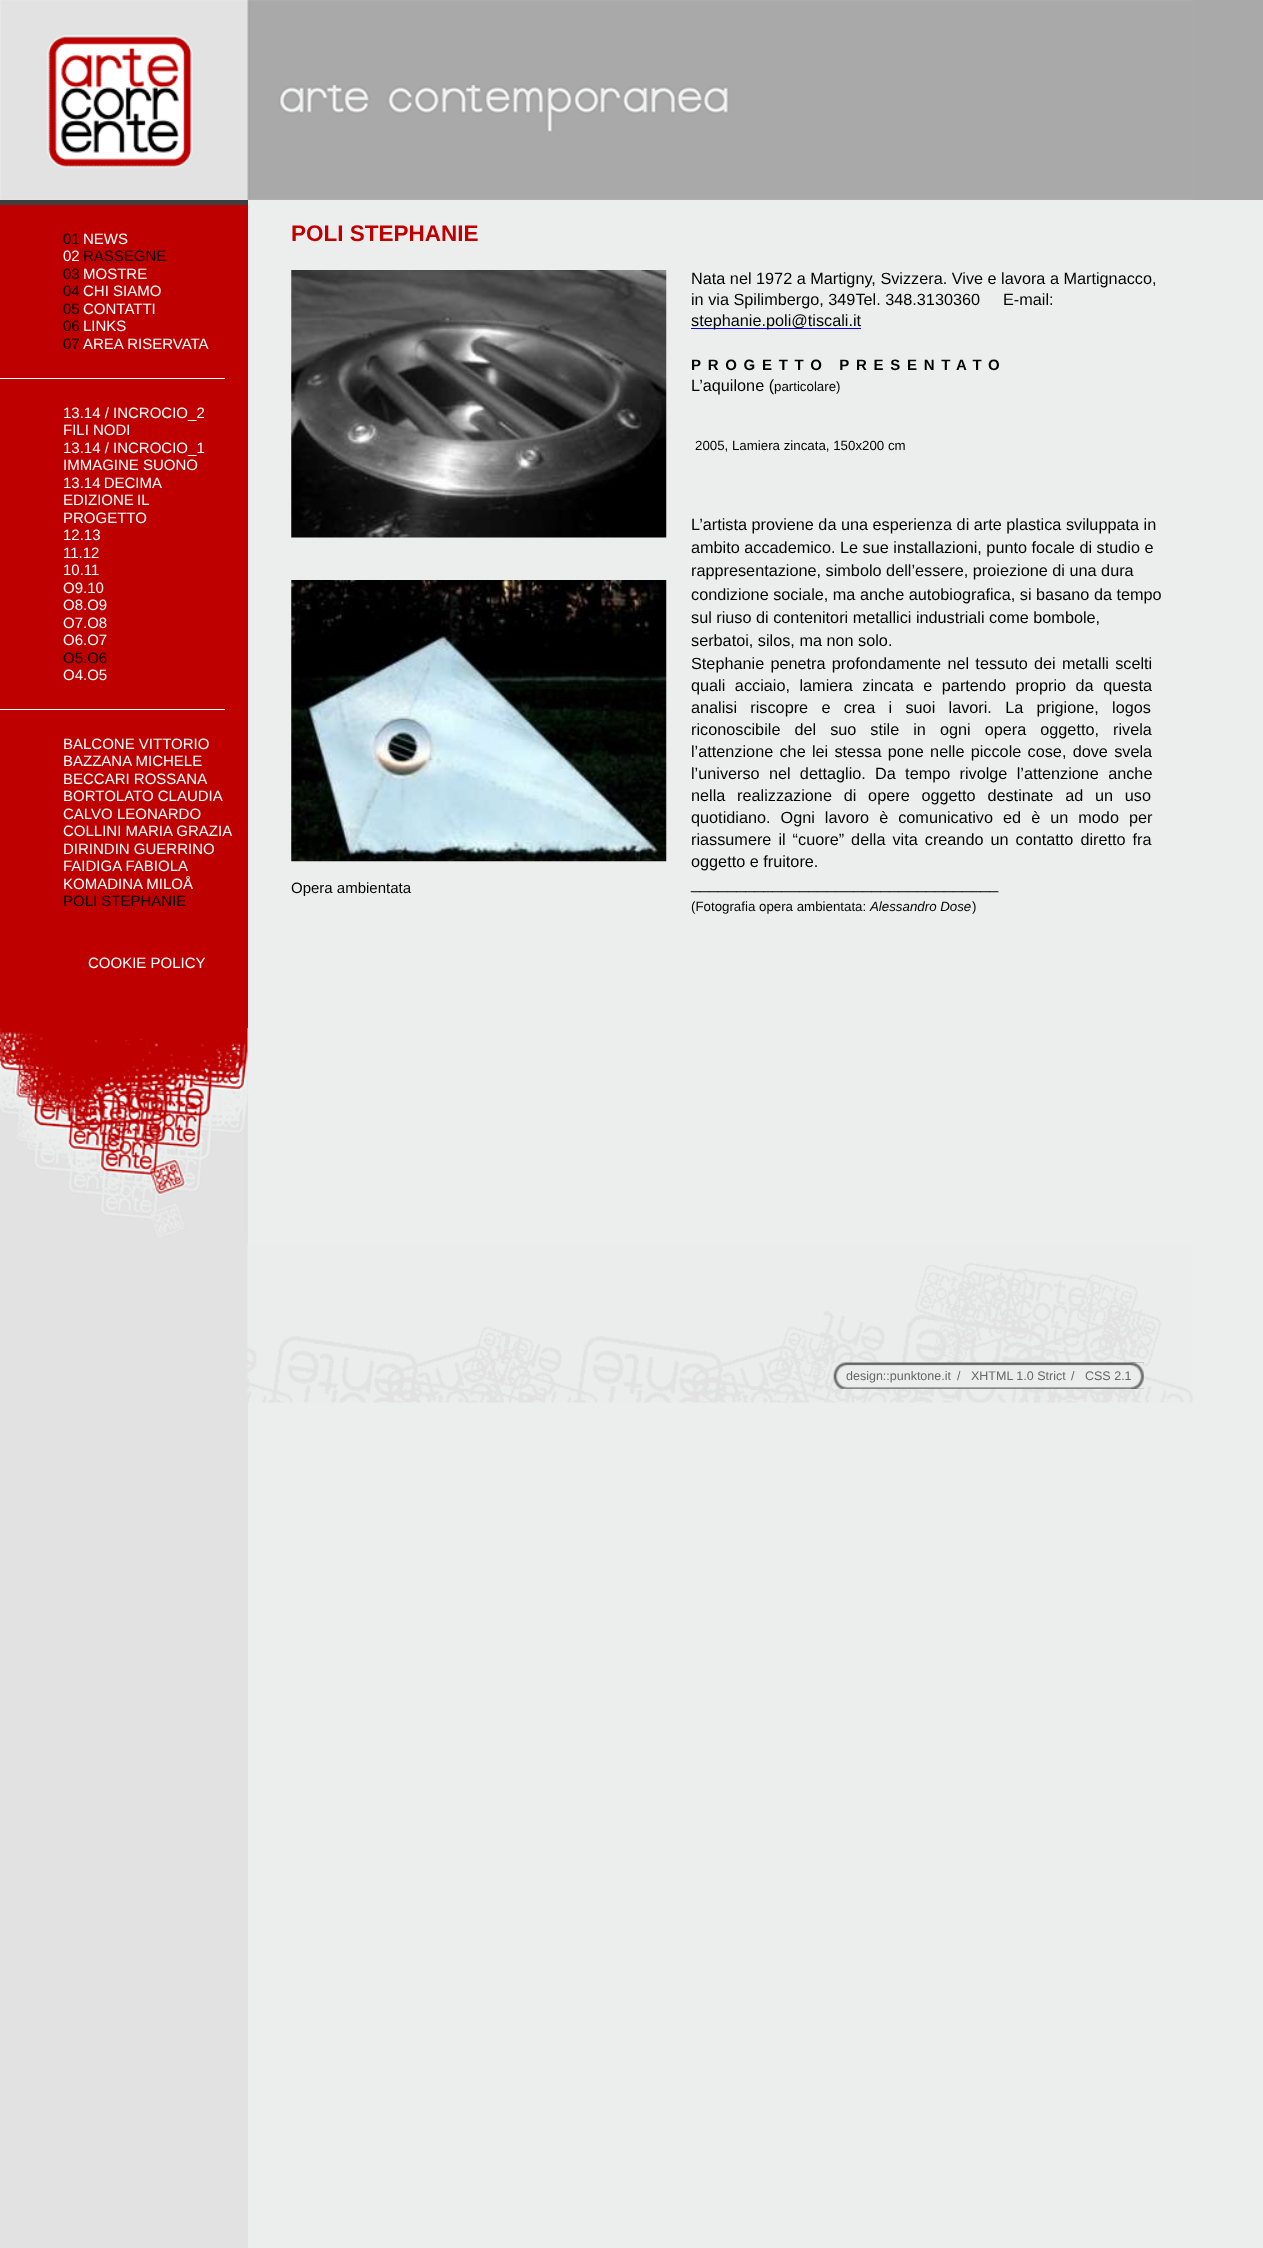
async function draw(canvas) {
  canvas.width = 1263;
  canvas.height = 2248;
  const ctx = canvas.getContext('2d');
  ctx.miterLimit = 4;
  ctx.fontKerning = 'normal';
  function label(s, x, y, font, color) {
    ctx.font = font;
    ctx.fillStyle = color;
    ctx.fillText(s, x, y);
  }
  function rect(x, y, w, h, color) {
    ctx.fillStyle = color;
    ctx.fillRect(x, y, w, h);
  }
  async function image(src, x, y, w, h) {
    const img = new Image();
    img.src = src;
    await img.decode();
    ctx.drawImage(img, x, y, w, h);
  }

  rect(0, 0, 1263, 2248, '#eceded');
  rect(0, 1028, 248, 1220, '#e2e2e2');
  rect(1193, 0, 70, 200, '#aaa9a9');
  await image('assets/img1.png', 0, 0, 1194, 200);
  rect(0, 200, 248, 5, '#3f3f3f');
  rect(0, 205, 248, 823, '#bf0000');
  rect(0, 378, 225, 1, '#fff');
  label('01', 63, 244, '15px Liberation Sans', '#000');
  label('NEWS', 83, 244, '15px Liberation Sans', '#fff');
  label('02', 63, 261, '15px Liberation Sans', '#fff');
  label('RASSEGNE', 83, 261, '15px Liberation Sans', '#000');
  label('03', 63, 279, '15px Liberation Sans', '#000');
  label('MOSTRE', 83, 279, '15px Liberation Sans', '#fff');
  label('04', 63, 296, '15px Liberation Sans', '#000');
  label('CHI SIAMO', 83, 296, '15px Liberation Sans', '#fff');
  label('05', 63, 314, '15px Liberation Sans', '#000');
  label('CONTATTI', 83, 314, '15px Liberation Sans', '#fff');
  label('06', 63, 331, '15px Liberation Sans', '#000');
  label('LINKS', 83, 331, '15px Liberation Sans', '#fff');
  label('07', 63, 349, '15px Liberation Sans', '#000');
  label('AREA RISERVATA', 83, 349, '15px Liberation Sans', '#fff');
  rect(0, 709, 225, 1, '#fff');
  label('13.14 / INCROCIO_2', 63, 418, '15px Liberation Sans', '#fff');
  label('FILI NODI', 63, 435, '15px Liberation Sans', '#fff');
  label('13.14 / INCROCIO_1', 63, 453, '15px Liberation Sans', '#fff');
  label('IMMAGINE SUONO', 63, 470, '15px Liberation Sans', '#fff');
  ctx.wordSpacing = '-1px';
  label('13.14 DECIMA', 63, 488, '15px Liberation Sans', '#fff');
  label('EDIZIONE IL', 63, 505, '15px Liberation Sans', '#fff');
  ctx.wordSpacing = '0px';
  label('PROGETTO', 63, 523, '15px Liberation Sans', '#fff');
  label('12.13', 63, 540, '15px Liberation Sans', '#fff');
  label('11.12', 63, 558, '15px Liberation Sans', '#fff');
  label('10.11', 63, 575, '15px Liberation Sans', '#fff');
  label('O9.10', 63, 593, '15px Liberation Sans', '#fff');
  label('O8.O9', 63, 610, '15px Liberation Sans', '#fff');
  label('O7.O8', 63, 628, '15px Liberation Sans', '#fff');
  label('O6.O7', 63, 645, '15px Liberation Sans', '#fff');
  label('O5.O6', 63, 663, '15px Liberation Sans', '#000');
  label('O4.O5', 63, 680, '15px Liberation Sans', '#fff');
  label('BALCONE VITTORIO', 63, 749, '15px Liberation Sans', '#fff');
  label('BAZZANA MICHELE', 63, 766, '15px Liberation Sans', '#fff');
  label('BECCARI ROSSANA', 63, 784, '15px Liberation Sans', '#fff');
  label('BORTOLATO CLAUDIA', 63, 801, '15px Liberation Sans', '#fff');
  label('CALVO LEONARDO', 63, 819, '15px Liberation Sans', '#fff');
  label('COLLINI MARIA GRAZIA', 63, 836, '15px Liberation Sans', '#fff');
  label('DIRINDIN GUERRINO', 63, 854, '15px Liberation Sans', '#fff');
  label('FAIDIGA FABIOLA', 63, 871, '15px Liberation Sans', '#fff');
  label('KOMADINA MILOÅ', 63, 889, '15px Liberation Sans', '#fff');
  label('POLI STEPHANIE', 63, 906, '15px Liberation Sans', '#000');
  label('COOKIE POLICY', 88, 968, '15px Liberation Sans', '#fff');
  await image('assets/img2.png', 0, 1028, 248, 209);
  label('POLI STEPHANIE', 291, 241, 'bold 22.5px Liberation Sans', '#be0000');
  label('Nata nel 1972 a Martigny, Svizzera. Vive e lavora a Martignacco,', 691, 284, '16.25px Liberation Sans', '#000');
  label('in via Spilimbergo, 349Tel. 348.3130360', 691, 305, '16.25px Liberation Sans', '#000');
  label('E-mail:', 1003, 305, '16.25px Liberation Sans', '#000');
  rect(691, 328, 170, 1, '#00e');
  label('stephanie.poli@tiscali.it', 691, 326, '16.25px Liberation Sans', '#000');
  ctx.letterSpacing = '6.7px';
  label('PROGETTO PRESENTATO', 691, 370, 'bold 15px Liberation Sans', '#000');
  ctx.letterSpacing = '0px';
  label('L’aquilone (', 691, 391, '16.25px Liberation Sans', '#000');
  label('particolare)', 774, 391, '13.3px Liberation Sans', '#000');
  label('2005, Lamiera zincata, 150x200 cm', 695, 450, '13.3px Liberation Sans', '#000');
  await image('assets/img3.png', 291, 270, 376, 268);
  await image('assets/img4.png', 291, 580, 376, 282);
  label('Opera ambientata', 291, 893, '15px Liberation Sans', '#000');
  label('L’artista proviene da una esperienza di arte plastica sviluppata in', 691, 530, '16.25px Liberation Sans', '#000');
  label('ambito accademico. Le sue installazioni, punto focale di studio e', 691, 553, '16.25px Liberation Sans', '#000');
  label('rappresentazione, simbolo dell’essere, proiezione di una dura', 691, 576, '16.25px Liberation Sans', '#000');
  label('condizione sociale, ma anche autobiografica, si basano da tempo', 691, 600, '16.25px Liberation Sans', '#000');
  label('sul riuso di contenitori metallici industriali come bombole,', 691, 623, '16.25px Liberation Sans', '#000');
  label('serbatoi, silos, ma non solo.', 691, 646, '16.25px Liberation Sans', '#000');
  ctx.wordSpacing = '1.75px';
  label('Stephanie penetra profondamente nel tessuto dei metalli scelti', 691, 669, '16.25px Liberation Sans', '#000');
  ctx.wordSpacing = '5px';
  label('quali acciaio, lamiera zincata e partendo proprio da questa', 691, 691, '16.25px Liberation Sans', '#000');
  ctx.wordSpacing = '8.75px';
  label('analisi riscopre e crea i suoi lavori. La prigione, logos', 691, 713, '16.25px Liberation Sans', '#000');
  ctx.wordSpacing = '9.5px';
  label('riconoscibile del suo stile in ogni opera oggetto, rivela', 691, 735, '16.25px Liberation Sans', '#000');
  ctx.wordSpacing = '1.75px';
  label('l’attenzione che lei stessa pone nelle piccole cose, dove svela', 691, 757, '16.25px Liberation Sans', '#000');
  ctx.wordSpacing = '4.75px';
  label('l’universo nel dettaglio. Da tempo rivolge l’attenzione anche', 691, 779, '16.25px Liberation Sans', '#000');
  ctx.wordSpacing = '7.25px';
  label('nella realizzazione di opere oggetto destinate ad un uso', 691, 801, '16.25px Liberation Sans', '#000');
  ctx.wordSpacing = '5.5px';
  label('quotidiano. Ogni lavoro è comunicativo ed è un modo per', 691, 823, '16.25px Liberation Sans', '#000');
  ctx.wordSpacing = '2.5px';
  label('riassumere il “cuore” della vita creando un contatto diretto fra', 691, 845, '16.25px Liberation Sans', '#000');
  ctx.wordSpacing = '0px';
  label('oggetto e fruitore.', 691, 867, '16.25px Liberation Sans', '#000');
  label('__________________________________', 691, 889, '16.25px Liberation Sans', '#000');
  label('(Fotografia opera ambientata:', 691, 911, '13.3px Liberation Sans', '#000');
  label('Alessandro Dose', 870, 911, 'italic 13.3px Liberation Sans', '#000');
  label(')', 972, 911, '13.3px Liberation Sans', '#000');
  await image('assets/img5.png', 247, 1244, 946, 159);
  await image('assets/img6.png', 833, 1362, 311, 27);
  await image('assets/img7.png', 1131, 1362, 13, 27);
  label('design::punktone.it', 846, 1380, '12.5px Liberation Sans', '#666');
  label('/', 957, 1380, '12.5px Liberation Sans', '#666');
  label('XHTML 1.0 Strict', 971, 1380, '12.5px Liberation Sans', '#666');
  label('/', 1071, 1380, '12.5px Liberation Sans', '#666');
  label('CSS 2.1', 1085, 1380, '12.5px Liberation Sans', '#666');
}

draw(document.querySelector('canvas'));
